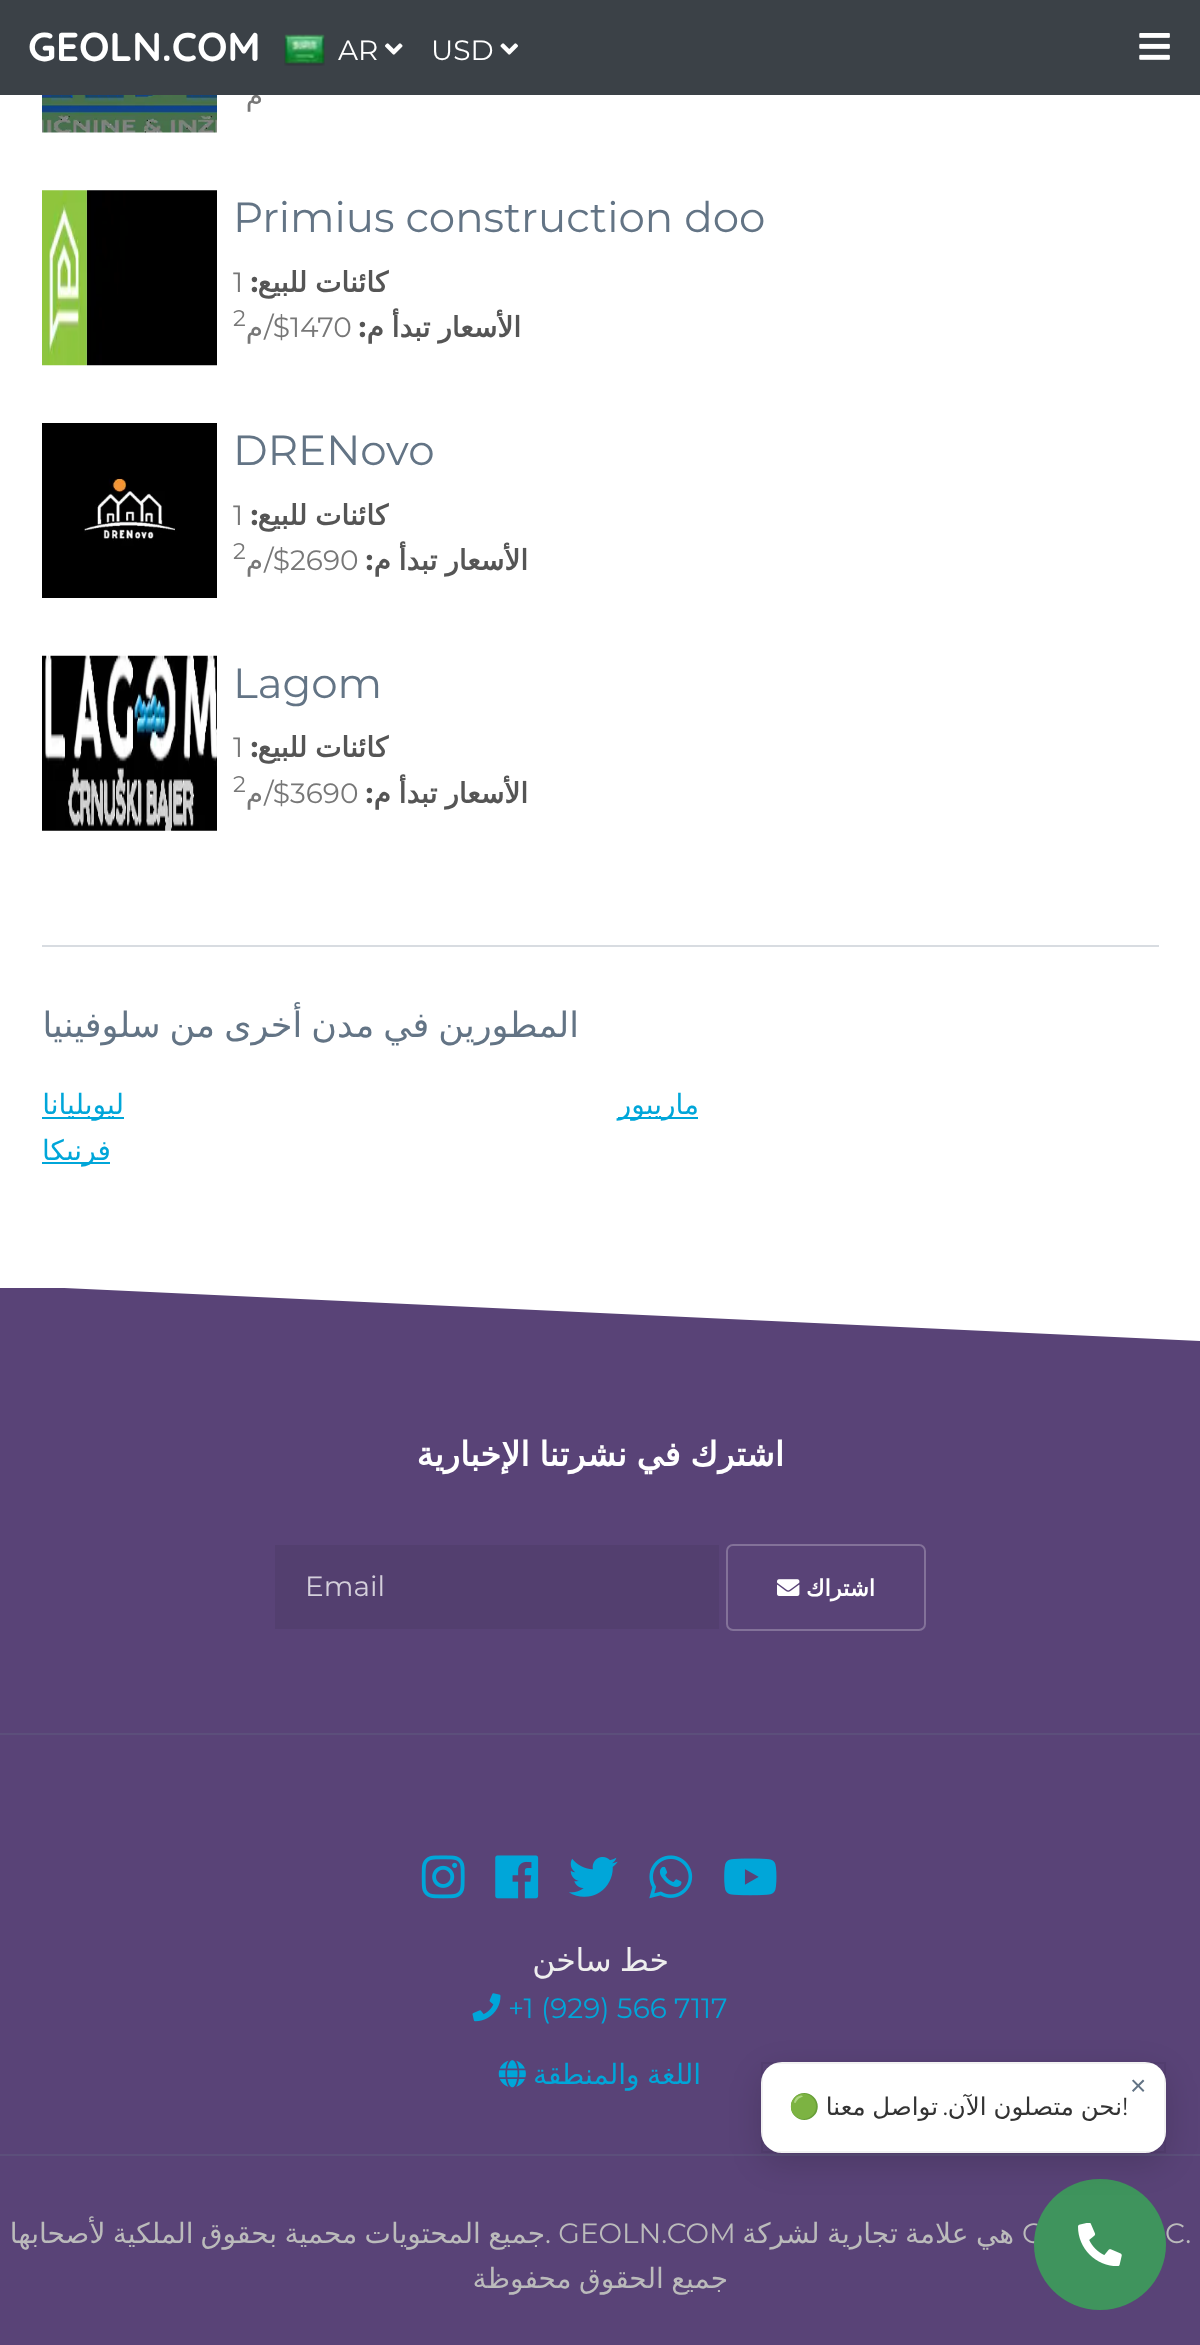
async function draw(canvas) {
  canvas.width = 1200;
  canvas.height = 2345;
  const ctx = canvas.getContext('2d');
  ctx.miterLimit = 4;
  ctx.fontKerning = 'normal';
  function label(s, x, y, font, color) {
    ctx.font = font;
    ctx.fillStyle = color;
    ctx.fillText(s, x, y);
  }
  function rect(x, y, w, h, color) {
    ctx.fillStyle = color;
    ctx.fillRect(x, y, w, h);
  }
  function roundedRect(x, y, w, h, r, color) {
    ctx.fillStyle = color;
    ctx.beginPath();
    ctx.roundRect(x, y, w, h, r);
    ctx.fill();
  }
  async function image(src, x, y, w, h) {
    const img = new Image();
    img.src = src;
    await img.decode();
    ctx.drawImage(img, x, y, w, h);
  }
  let path;

  rect(0, 0, 1200, 2345, '#fff');
  ctx.direction = 'rtl';
  label('م', 263, 105, '28px DejaVu Sans', '#777');
  rect(0, 0, 1200, 95, '#3b4147');
  await image('assets/img1.png', 1139, 33, 31, 27);
  await image('assets/img2.png', 500, 43, 18, 12);
  ctx.direction = 'ltr';
  label('USD', 431, 60, '28px Montserrat', '#fff');
  await image('assets/img3.png', 385, 43, 18, 12);
  label('AR', 338, 60, '28px Montserrat', '#fff');
  await image('assets/img4.png', 284, 34, 41, 32);
  label('GEOLN.COM', 28, 61, 'bold 40.25px Quicksand', '#fff');
  await image('assets/img5.png', 42, 95, 175, 38);
  label('Primius construction doo', 233, 232, '42px Montserrat', '#637485');
  ctx.wordSpacing = '-1px';
  ctx.direction = 'rtl';
  label('كائنات للبيع', 388, 292, 'bold 28px DejaVu Sans', '#555');
  ctx.wordSpacing = '0px';
  label(':', 258, 292, 'bold 28px Montserrat', '#555');
  ctx.direction = 'ltr';
  label('1', 233, 292, '28px Montserrat', '#777');
  ctx.wordSpacing = '-1px';
  ctx.direction = 'rtl';
  label('الأسعار تبدأ م', 521, 337, 'bold 28px DejaVu Sans', '#555');
  ctx.wordSpacing = '0px';
  label(':', 366, 337, 'bold 28px Montserrat', '#555');
  label('$/', 290, 337, '28px Montserrat', '#777');
  ctx.direction = 'ltr';
  label('1470', 290, 337, '28px Montserrat', '#777');
  ctx.direction = 'rtl';
  label('م', 263, 337, '28px DejaVu Sans', '#777');
  ctx.direction = 'ltr';
  label('2', 233, 326, '22.5px Montserrat', '#777');
  await image('assets/img6.png', 42, 190, 175, 176);
  label('DRENovo', 233, 465, '42px Montserrat', '#637485');
  ctx.wordSpacing = '-1px';
  ctx.direction = 'rtl';
  label('كائنات للبيع', 388, 525, 'bold 28px DejaVu Sans', '#555');
  ctx.wordSpacing = '0px';
  label(':', 258, 525, 'bold 28px Montserrat', '#555');
  ctx.direction = 'ltr';
  label('1', 233, 525, '28px Montserrat', '#777');
  ctx.wordSpacing = '-1px';
  ctx.direction = 'rtl';
  label('الأسعار تبدأ م', 528, 570, 'bold 28px DejaVu Sans', '#555');
  ctx.wordSpacing = '0px';
  label(':', 373, 570, 'bold 28px Montserrat', '#555');
  label('$/', 290, 570, '28px Montserrat', '#777');
  ctx.direction = 'ltr';
  label('2690', 290, 570, '28px Montserrat', '#777');
  ctx.direction = 'rtl';
  label('م', 263, 570, '28px DejaVu Sans', '#777');
  ctx.direction = 'ltr';
  label('2', 233, 559, '22.5px Montserrat', '#777');
  await image('assets/img7.png', 42, 423, 175, 175);
  label('Lagom', 233, 698, '42px Montserrat', '#637485');
  ctx.wordSpacing = '-1px';
  ctx.direction = 'rtl';
  label('كائنات للبيع', 388, 757, 'bold 28px DejaVu Sans', '#555');
  ctx.wordSpacing = '0px';
  label(':', 258, 757, 'bold 28px Montserrat', '#555');
  ctx.direction = 'ltr';
  label('1', 233, 757, '28px Montserrat', '#777');
  ctx.wordSpacing = '-1px';
  ctx.direction = 'rtl';
  label('الأسعار تبدأ م', 528, 803, 'bold 28px DejaVu Sans', '#555');
  ctx.wordSpacing = '0px';
  label(':', 373, 803, 'bold 28px Montserrat', '#555');
  label('$/', 290, 803, '28px Montserrat', '#777');
  ctx.direction = 'ltr';
  label('3690', 290, 803, '28px Montserrat', '#777');
  ctx.direction = 'rtl';
  label('م', 263, 803, '28px DejaVu Sans', '#777');
  ctx.direction = 'ltr';
  label('2', 233, 792, '22.5px Montserrat', '#777');
  await image('assets/img8.png', 42, 655, 175, 176);
  rect(42, 945, 1117, 2, '#d8dce1');
  ctx.wordSpacing = '-2px';
  ctx.direction = 'rtl';
  label('المطورين في مدن أخرى من سلوفينيا', 579, 1037, '35px DejaVu Sans', '#637485');
  rect(618, 1117, 80, 2, '#00a6d9');
  ctx.wordSpacing = '0px';
  label('ماريبور', 699, 1114, '28px DejaVu Sans', '#00a6d9');
  rect(42, 1117, 82, 2, '#00a6d9');
  label('ليوبليانا', 124, 1114, '28px DejaVu Sans', '#00a6d9');
  rect(42, 1162, 68, 2, '#00a6d9');
  label('فرنيكا', 111, 1160, '28px DejaVu Sans', '#00a6d9');
  rect(0, 1288, 1200, 1057, '#594377');
  ctx.save();
  ctx.beginPath();
  ctx.rect(0, 1286, 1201, 56);
  ctx.clip();
  ctx.fillStyle = '#fff';
  path = new Path2D('M1200 1341V1285H0Z');
  ctx.fill(path);
  ctx.restore();
  ctx.wordSpacing = '-1px';
  label('اشترك في نشرتنا الإخبارية', 784, 1466, 'bold 33.6px DejaVu Sans', '#fff');
  ctx.beginPath();
  ctx.roundRect(727, 1545, 198, 85, 6);
  ctx.strokeStyle = '#837299';
  ctx.lineWidth = 2;
  ctx.stroke();
  ctx.wordSpacing = '0px';
  label('اشتراك', 875, 1596, 'bold 22.5px DejaVu Sans', '#fff');
  await image('assets/img9.png', 777, 1579, 23, 17);
  rect(275, 1545, 444, 84, '#533f6f');
  ctx.direction = 'ltr';
  label('Email', 305, 1596, '28px Montserrat', '#d4cfdb');
  rect(0, 1733, 1200, 2, '#5c4f7b');
  await image('assets/img10.png', 724, 1858, 53, 38);
  await image('assets/img11.png', 649, 1855, 44, 44);
  await image('assets/img12.png', 569, 1857, 49, 40);
  await image('assets/img13.png', 495, 1855, 44, 44);
  await image('assets/img14.png', 421, 1855, 44, 44);
  ctx.wordSpacing = '-2px';
  ctx.direction = 'rtl';
  label('خط ساخن', 669, 1971, '31.5px DejaVu Sans', '#eee');
  ctx.wordSpacing = '0px';
  ctx.direction = 'ltr';
  label('+1 (929) 566 7117', 508, 2018, '28px Montserrat', '#00a6d9');
  await image('assets/img15.png', 472, 1993, 29, 29);
  ctx.wordSpacing = '-1.5px';
  ctx.direction = 'rtl';
  label('اللغة والمنطقة', 701, 2084, '28px DejaVu Sans', '#00a6d9');
  await image('assets/img16.png', 498, 2060, 28, 28);
  rect(0, 2154, 1200, 2, '#5c4f7b');
  ctx.wordSpacing = '0px';
  ctx.direction = 'ltr';
  label('C.', 1165, 2243, '28px Montserrat', '#bbb');
  label('G', 1022, 2243, '28px Montserrat', '#bbb');
  ctx.wordSpacing = '-1.5px';
  ctx.direction = 'rtl';
  label('هي علامة تجارية لشركة', 1014, 2243, '28px DejaVu Sans', '#bbb');
  label('جميع المحتويات محمية بحقوق الملكية لأصحابها', 545, 2243, '28px DejaVu Sans', '#bbb');
  ctx.wordSpacing = '0px';
  ctx.direction = 'ltr';
  label('. GEOLN.COM', 545, 2243, '28px Montserrat', '#bbb');
  ctx.wordSpacing = '-1.5px';
  ctx.direction = 'rtl';
  label('جميع الحقوق محفوظة', 728, 2288, '28px DejaVu Sans', '#bbb');
  roundedRect(1034, 2179, 132, 131, 65.5, '#3f945d');
  ctx.fillStyle = '#00000026';
  ctx.filter = 'blur(16px)';
  ctx.beginPath();
  ctx.roundRect(761, 2072, 405, 91, 21);
  ctx.fill();
  ctx.filter = 'none';
  roundedRect(761, 2062, 405, 91, 21, '#fff');
  ctx.strokeStyle = '#0000000d';
  ctx.strokeRect(762, 2063, 403, 89);
  ctx.wordSpacing = '0px';
  ctx.direction = 'ltr';
  label('×', 1130, 2095, '28px Liberation Sans', '#637485');
  label('!', 1122, 2115, '24.5px Montserrat', '#333');
  ctx.wordSpacing = '-1px';
  ctx.direction = 'rtl';
  label('نحن متصلون الآن', 1122, 2115, '24.5px DejaVu Sans', '#333');
  ctx.wordSpacing = '0px';
  label('.', 948, 2115, '24.5px Montserrat', '#333');
  ctx.wordSpacing = '-1px';
  label('تواصل معنا', 938, 2115, '24.5px DejaVu Sans', '#333');
  ctx.wordSpacing = '0px';
  ctx.direction = 'ltr';
  label('🟢', 789, 2115, '24.5px Noto Color Emoji', '#333');
  await image('assets/img17.png', 1078, 2223, 44, 43);
}

draw(document.querySelector('canvas'));
